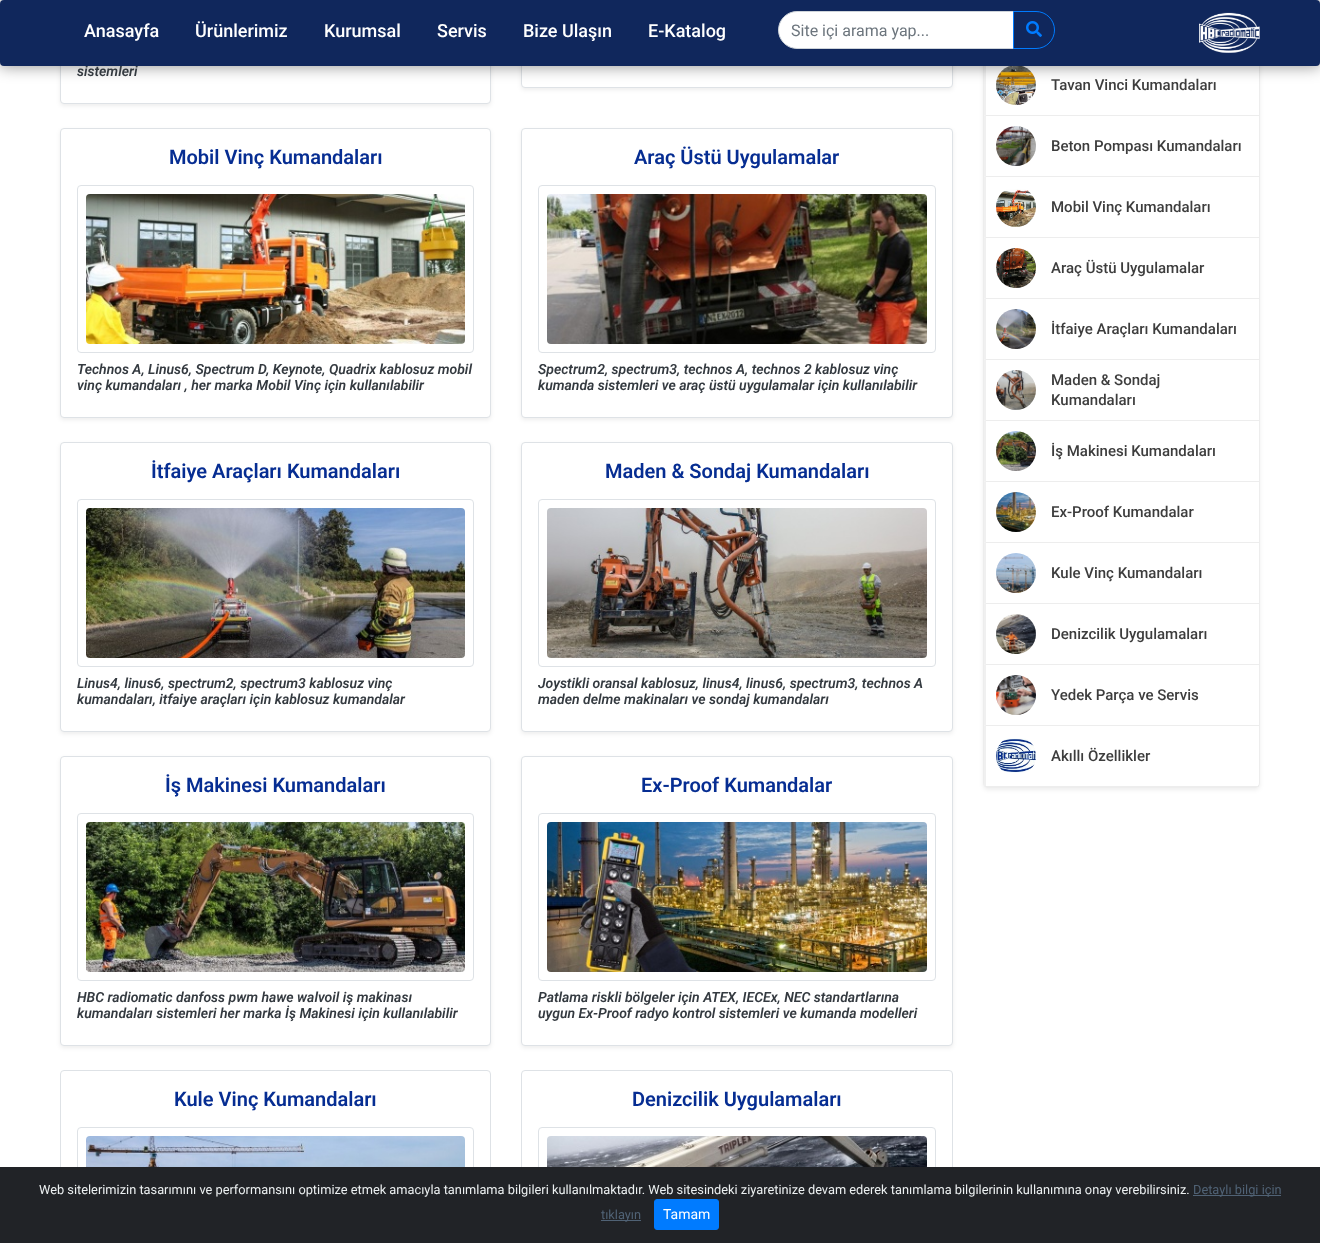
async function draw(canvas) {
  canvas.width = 1320;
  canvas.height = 1243;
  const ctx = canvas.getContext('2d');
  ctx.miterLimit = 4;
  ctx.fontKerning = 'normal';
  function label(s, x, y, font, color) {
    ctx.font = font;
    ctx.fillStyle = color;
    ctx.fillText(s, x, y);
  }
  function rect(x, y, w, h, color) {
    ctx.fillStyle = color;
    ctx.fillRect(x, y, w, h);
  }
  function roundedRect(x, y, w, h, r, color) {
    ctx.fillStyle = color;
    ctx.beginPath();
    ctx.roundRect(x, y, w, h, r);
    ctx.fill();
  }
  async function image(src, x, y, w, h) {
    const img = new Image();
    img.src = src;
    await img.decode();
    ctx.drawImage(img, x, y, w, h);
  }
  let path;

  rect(0, 0, 1320, 1243, '#fff');
  ctx.fillStyle = '#00000012';
  ctx.filter = 'blur(2px)';
  ctx.beginPath();
  ctx.roundRect(60, -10, 431, 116, 4);
  ctx.fill();
  ctx.filter = 'none';
  ctx.fillStyle = '#fff';
  ctx.beginPath();
  ctx.roundRect(60.5, -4.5, 430, 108, 3.5);
  ctx.fill();
  ctx.strokeStyle = '#dee2e6';
  ctx.stroke();
  ctx.fillStyle = '#00000012';
  ctx.filter = 'blur(2px)';
  ctx.beginPath();
  ctx.roundRect(521, -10, 432, 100, 4);
  ctx.fill();
  ctx.filter = 'none';
  ctx.fillStyle = '#fff';
  ctx.beginPath();
  ctx.roundRect(521.5, -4.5, 431, 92, 3.5);
  ctx.fill();
  ctx.stroke();
  ctx.fillStyle = '#00000012';
  ctx.filter = 'blur(2px)';
  ctx.beginPath();
  ctx.roundRect(983, 56, 277, 734, 5);
  ctx.fill();
  ctx.filter = 'none';
  ctx.fillStyle = '#fff';
  ctx.beginPath();
  ctx.roundRect(983.5, 54.5, 276, 733, 4.5);
  ctx.fill();
  ctx.strokeStyle = '#ededed';
  ctx.stroke();
  ctx.fillStyle = '#ededed';
  path = new Path2D('M1259 116H984L986 115H1259Z');
  ctx.fill(path);
  ctx.fillStyle = '#f0f0f0';
  path = new Path2D('M984 116V55H986V115Z');
  ctx.fill(path);
  await image('assets/img11.png', 996, 66, 40, 39);
  ctx.fillStyle = '#00000066';
  ctx.filter = 'blur(7.5px)';
  ctx.beginPath();
  ctx.roundRect(-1, -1, 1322, 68, 5);
  ctx.fill();
  ctx.filter = 'none';
  label('sistemleri', 77, 76, 'italic 600 14px Roboto', '#343a40');
  roundedRect(0, 0, 1320, 66, 4, '#10275c');
  label('Anasayfa', 84, 37, '500 18px Roboto', '#fff');
  label('Ürünlerimiz', 195, 37, '500 18px Roboto', '#fff');
  label('Kurumsal', 324, 37, '500 18px Roboto', '#fff');
  label('Servis', 437, 37, '500 18px Roboto', '#fff');
  label('Bize Ulaşın', 523, 37, '500 18px Roboto', '#fff');
  label('E-Katalog', 648, 37, '500 18px Roboto', '#fff');
  ctx.beginPath();
  ctx.roundRect(778.5, 11.5, 235, 37, [18.5, 0, 0, 18.5]);
  ctx.fill();
  ctx.strokeStyle = '#ced4da';
  ctx.stroke();
  label('Site içi arama yap...', 791, 36, '16px Roboto', '#6c757d');
  ctx.beginPath();
  ctx.roundRect(1013.5, 11.5, 41, 37, [0, 18.5, 18.5, 0]);
  ctx.strokeStyle = '#007bff';
  ctx.stroke();
  await image('assets/img1.png', 1026, 21, 16, 16);
  await image('assets/img2.png', 1199, 12, 61, 41);
  ctx.fillStyle = '#00000012';
  ctx.filter = 'blur(2px)';
  ctx.beginPath();
  ctx.roundRect(60, 130, 431, 290, 4);
  ctx.fill();
  ctx.filter = 'none';
  ctx.fillStyle = '#fff';
  ctx.beginPath();
  ctx.roundRect(60.5, 128.5, 430, 289, 3.5);
  ctx.fill();
  ctx.strokeStyle = '#dee2e6';
  ctx.stroke();
  label('Mobil Vinç Kumandaları', 169, 164, '600 20px Roboto', '#062d92');
  ctx.beginPath();
  ctx.roundRect(77.5, 185.5, 396, 167, 3.5);
  ctx.stroke();
  await image('assets/img3.png', 86, 194, 379, 150);
  label('Technos A, Linus6, Spectrum D, Keynote, Quadrix kablosuz mobil', 77, 374, 'italic 600 14px Roboto', '#343a40');
  label('vinç kumandaları , her marka Mobil Vinç için kullanılabilir', 77, 390, 'italic 600 14px Roboto', '#343a40');
  ctx.fillStyle = '#00000012';
  ctx.filter = 'blur(2px)';
  ctx.beginPath();
  ctx.roundRect(521, 130, 432, 290, 4);
  ctx.fill();
  ctx.filter = 'none';
  ctx.fillStyle = '#fff';
  ctx.beginPath();
  ctx.roundRect(521.5, 128.5, 431, 289, 3.5);
  ctx.fill();
  ctx.stroke();
  label('Araç Üstü Uygulamalar', 634, 164, '600 20px Roboto', '#062d92');
  ctx.beginPath();
  ctx.roundRect(538.5, 185.5, 397, 167, 3.5);
  ctx.stroke();
  await image('assets/img4.png', 547, 194, 380, 150);
  label('Spectrum2, spectrum3, technos A, technos 2 kablosuz vinç', 538, 374, 'italic 600 14px Roboto', '#343a40');
  label('kumanda sistemleri ve araç üstü uygulamalar için kullanılabilir', 538, 390, 'italic 600 14px Roboto', '#343a40');
  ctx.fillStyle = '#00000012';
  ctx.filter = 'blur(2px)';
  ctx.beginPath();
  ctx.roundRect(60, 444, 431, 290, 4);
  ctx.fill();
  ctx.filter = 'none';
  ctx.fillStyle = '#fff';
  ctx.beginPath();
  ctx.roundRect(60.5, 442.5, 430, 289, 3.5);
  ctx.fill();
  ctx.stroke();
  label('İtfaiye Araçları Kumandaları', 151, 478, '600 20px Roboto', '#062d92');
  ctx.beginPath();
  ctx.roundRect(77.5, 499.5, 396, 167, 3.5);
  ctx.stroke();
  await image('assets/img5.png', 86, 508, 379, 150);
  label('Linus4, linus6, spectrum2, spectrum3 kablosuz vinç', 77, 688, 'italic 600 14px Roboto', '#343a40');
  label('kumandaları, itfaiye araçları için kablosuz kumandalar', 77, 704, 'italic 600 14px Roboto', '#343a40');
  ctx.fillStyle = '#00000012';
  ctx.filter = 'blur(2px)';
  ctx.beginPath();
  ctx.roundRect(521, 444, 432, 290, 4);
  ctx.fill();
  ctx.filter = 'none';
  ctx.fillStyle = '#fff';
  ctx.beginPath();
  ctx.roundRect(521.5, 442.5, 431, 289, 3.5);
  ctx.fill();
  ctx.stroke();
  label('Maden & Sondaj Kumandaları', 605, 478, '600 20px Roboto', '#062d92');
  ctx.beginPath();
  ctx.roundRect(538.5, 499.5, 397, 167, 3.5);
  ctx.stroke();
  await image('assets/img6.png', 547, 508, 380, 150);
  label('Joystikli oransal kablosuz, linus4, linus6, spectrum3, technos A', 538, 688, 'italic 600 14px Roboto', '#343a40');
  label('maden delme makinaları ve sondaj kumandaları', 538, 704, 'italic 600 14px Roboto', '#343a40');
  ctx.fillStyle = '#00000012';
  ctx.filter = 'blur(2px)';
  ctx.beginPath();
  ctx.roundRect(60, 758, 431, 290, 4);
  ctx.fill();
  ctx.filter = 'none';
  ctx.fillStyle = '#fff';
  ctx.beginPath();
  ctx.roundRect(60.5, 756.5, 430, 289, 3.5);
  ctx.fill();
  ctx.stroke();
  label('İş Makinesi Kumandaları', 165, 792, '600 20px Roboto', '#062d92');
  ctx.beginPath();
  ctx.roundRect(77.5, 813.5, 396, 167, 3.5);
  ctx.stroke();
  await image('assets/img7.png', 86, 822, 379, 150);
  label('HBC radiomatic danfoss pwm hawe walvoil iş makinası', 77, 1002, 'italic 600 14px Roboto', '#343a40');
  label('kumandaları sistemleri her marka İş Makinesi için kullanılabilir', 77, 1018, 'italic 600 14px Roboto', '#343a40');
  ctx.fillStyle = '#00000012';
  ctx.filter = 'blur(2px)';
  ctx.beginPath();
  ctx.roundRect(521, 758, 432, 290, 4);
  ctx.fill();
  ctx.filter = 'none';
  ctx.fillStyle = '#fff';
  ctx.beginPath();
  ctx.roundRect(521.5, 756.5, 431, 289, 3.5);
  ctx.fill();
  ctx.stroke();
  label('Ex-Proof Kumandalar', 641, 792, '600 20px Roboto', '#062d92');
  ctx.beginPath();
  ctx.roundRect(538.5, 813.5, 397, 167, 3.5);
  ctx.stroke();
  await image('assets/img8.png', 547, 822, 380, 150);
  label('Patlama riskli bölgeler için ATEX, IECEx, NEC standartlarına', 538, 1002, 'italic 600 14px Roboto', '#343a40');
  label('uygun Ex-Proof radyo kontrol sistemleri ve kumanda modelleri', 538, 1018, 'italic 600 14px Roboto', '#343a40');
  ctx.beginPath();
  ctx.roundRect(60.5, 1070.5, 430, 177, 3.5);
  ctx.stroke();
  label('Kule Vinç Kumandaları', 174, 1106, '600 20px Roboto', '#062d92');
  ctx.beginPath();
  ctx.roundRect(77.5, 1127.5, 396, 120, 3.5);
  ctx.stroke();
  await image('assets/img9.png', 86, 1136, 379, 31);
  ctx.beginPath();
  ctx.roundRect(521.5, 1070.5, 431, 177, 3.5);
  ctx.stroke();
  label('Denizcilik Uygulamaları', 632, 1106, '600 20px Roboto', '#062d92');
  ctx.beginPath();
  ctx.roundRect(538.5, 1127.5, 397, 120, 3.5);
  ctx.stroke();
  await image('assets/img10.png', 547, 1136, 380, 31);
  label('Tavan Vinci Kumandaları', 1051, 90, '500 15px Roboto', '#3d3d3d');
  ctx.fillStyle = '#ededed';
  path = new Path2D('M1259 177H984L986 176H1259Z');
  ctx.fill(path);
  ctx.fillStyle = '#f0f0f0';
  path = new Path2D('M984 177V116H986V176Z');
  ctx.fill(path);
  await image('assets/img12.png', 996, 126, 40, 40);
  label('Beton Pompası Kumandaları', 1051, 151, '500 15px Roboto', '#3d3d3d');
  ctx.fillStyle = '#ededed';
  path = new Path2D('M1259 238H984L986 237H1259Z');
  ctx.fill(path);
  ctx.fillStyle = '#f0f0f0';
  path = new Path2D('M984 238V177H986V237Z');
  ctx.fill(path);
  await image('assets/img13.png', 996, 189, 40, 38);
  label('Mobil Vinç Kumandaları', 1051, 212, '500 15px Roboto', '#3d3d3d');
  ctx.fillStyle = '#ededed';
  path = new Path2D('M1259 299H984L986 298H1259Z');
  ctx.fill(path);
  ctx.fillStyle = '#f0f0f0';
  path = new Path2D('M984 299V238H986V298Z');
  ctx.fill(path);
  await image('assets/img14.png', 996, 248, 40, 40);
  label('Araç Üstü Uygulamalar', 1051, 273, '500 15px Roboto', '#3d3d3d');
  ctx.fillStyle = '#ededed';
  path = new Path2D('M1259 360H984L986 359H1259Z');
  ctx.fill(path);
  ctx.fillStyle = '#f0f0f0';
  path = new Path2D('M984 360V299H986V359Z');
  ctx.fill(path);
  await image('assets/img15.png', 996, 309, 40, 40);
  label('İtfaiye Araçları Kumandaları', 1051, 334, '500 15px Roboto', '#3d3d3d');
  ctx.fillStyle = '#ededed';
  path = new Path2D('M1259 421H984L986 420H1259Z');
  ctx.fill(path);
  ctx.fillStyle = '#f0f0f0';
  path = new Path2D('M984 421V360H986V420Z');
  ctx.fill(path);
  await image('assets/img16.png', 996, 370, 40, 40);
  label('Maden & Sondaj', 1051, 385, '500 15px Roboto', '#3d3d3d');
  label('Kumandaları', 1051, 405, '500 15px Roboto', '#3d3d3d');
  ctx.fillStyle = '#ededed';
  path = new Path2D('M1259 482H984L986 481H1259Z');
  ctx.fill(path);
  ctx.fillStyle = '#f0f0f0';
  path = new Path2D('M984 482V421H986V481Z');
  ctx.fill(path);
  await image('assets/img17.png', 996, 431, 40, 40);
  label('İş Makinesi Kumandaları', 1051, 456, '500 15px Roboto', '#3d3d3d');
  ctx.fillStyle = '#ededed';
  path = new Path2D('M1259 543H984L986 542H1259Z');
  ctx.fill(path);
  ctx.fillStyle = '#f0f0f0';
  path = new Path2D('M984 543V482H986V542Z');
  ctx.fill(path);
  await image('assets/img18.png', 996, 492, 40, 40);
  label('Ex-Proof Kumandalar', 1051, 517, '500 15px Roboto', '#3d3d3d');
  ctx.fillStyle = '#ededed';
  path = new Path2D('M1259 604H984L986 603H1259Z');
  ctx.fill(path);
  ctx.fillStyle = '#f0f0f0';
  path = new Path2D('M984 604V543H986V603Z');
  ctx.fill(path);
  await image('assets/img19.png', 996, 553, 40, 40);
  label('Kule Vinç Kumandaları', 1051, 578, '500 15px Roboto', '#3d3d3d');
  ctx.fillStyle = '#ededed';
  path = new Path2D('M1259 665H984L986 664H1259Z');
  ctx.fill(path);
  ctx.fillStyle = '#f0f0f0';
  path = new Path2D('M984 665V604H986V664Z');
  ctx.fill(path);
  await image('assets/img20.png', 996, 614, 40, 40);
  label('Denizcilik Uygulamaları', 1051, 639, '500 15px Roboto', '#3d3d3d');
  ctx.fillStyle = '#ededed';
  path = new Path2D('M1259 726H984L986 725H1259Z');
  ctx.fill(path);
  ctx.fillStyle = '#f0f0f0';
  path = new Path2D('M984 726V665H986V725Z');
  ctx.fill(path);
  await image('assets/img21.png', 996, 675, 40, 40);
  label('Yedek Parça ve Servis', 1051, 700, '500 15px Roboto', '#3d3d3d');
  ctx.fillStyle = '#ededed';
  path = new Path2D('M1259 787H984L986 786H1259Z');
  ctx.fill(path);
  ctx.fillStyle = '#f0f0f0';
  path = new Path2D('M984 787V726H986V786Z');
  ctx.fill(path);
  await image('assets/img22.png', 996, 738, 40, 35);
  label('Akıllı Özellikler', 1051, 761, '500 15px Roboto', '#3d3d3d');
  rect(0, 1167, 1320, 76, '#212327');
  label('Web sitelerimizin tasarımını ve performansını optimize etmek amacıyla tanımlama bilgileri kullanılmaktadır. Web sitesindeki ziyaretinize devam ederek tanımlama bilgilerinin kullanımına onay verebilirsiniz.', 39, 1194, '12.8px Roboto', '#ecf0f1');
  rect(1193, 1195, 88, 1, '#506275');
  label('Detaylı bilgi için', 1193, 1194, '12.8px Roboto', '#506275');
  rect(601, 1220, 40, 1, '#506275');
  label('tıklayın', 601, 1219, '12.8px Roboto', '#506275');
  ctx.fillStyle = '#007bff';
  ctx.beginPath();
  ctx.roundRect(654.5, 1199.5, 64, 30, 2.5);
  ctx.fill();
  ctx.strokeStyle = '#007bff';
  ctx.stroke();
  label('Tamam', 663, 1219, '14px Roboto', '#fff');
}

draw(document.querySelector('canvas'));
